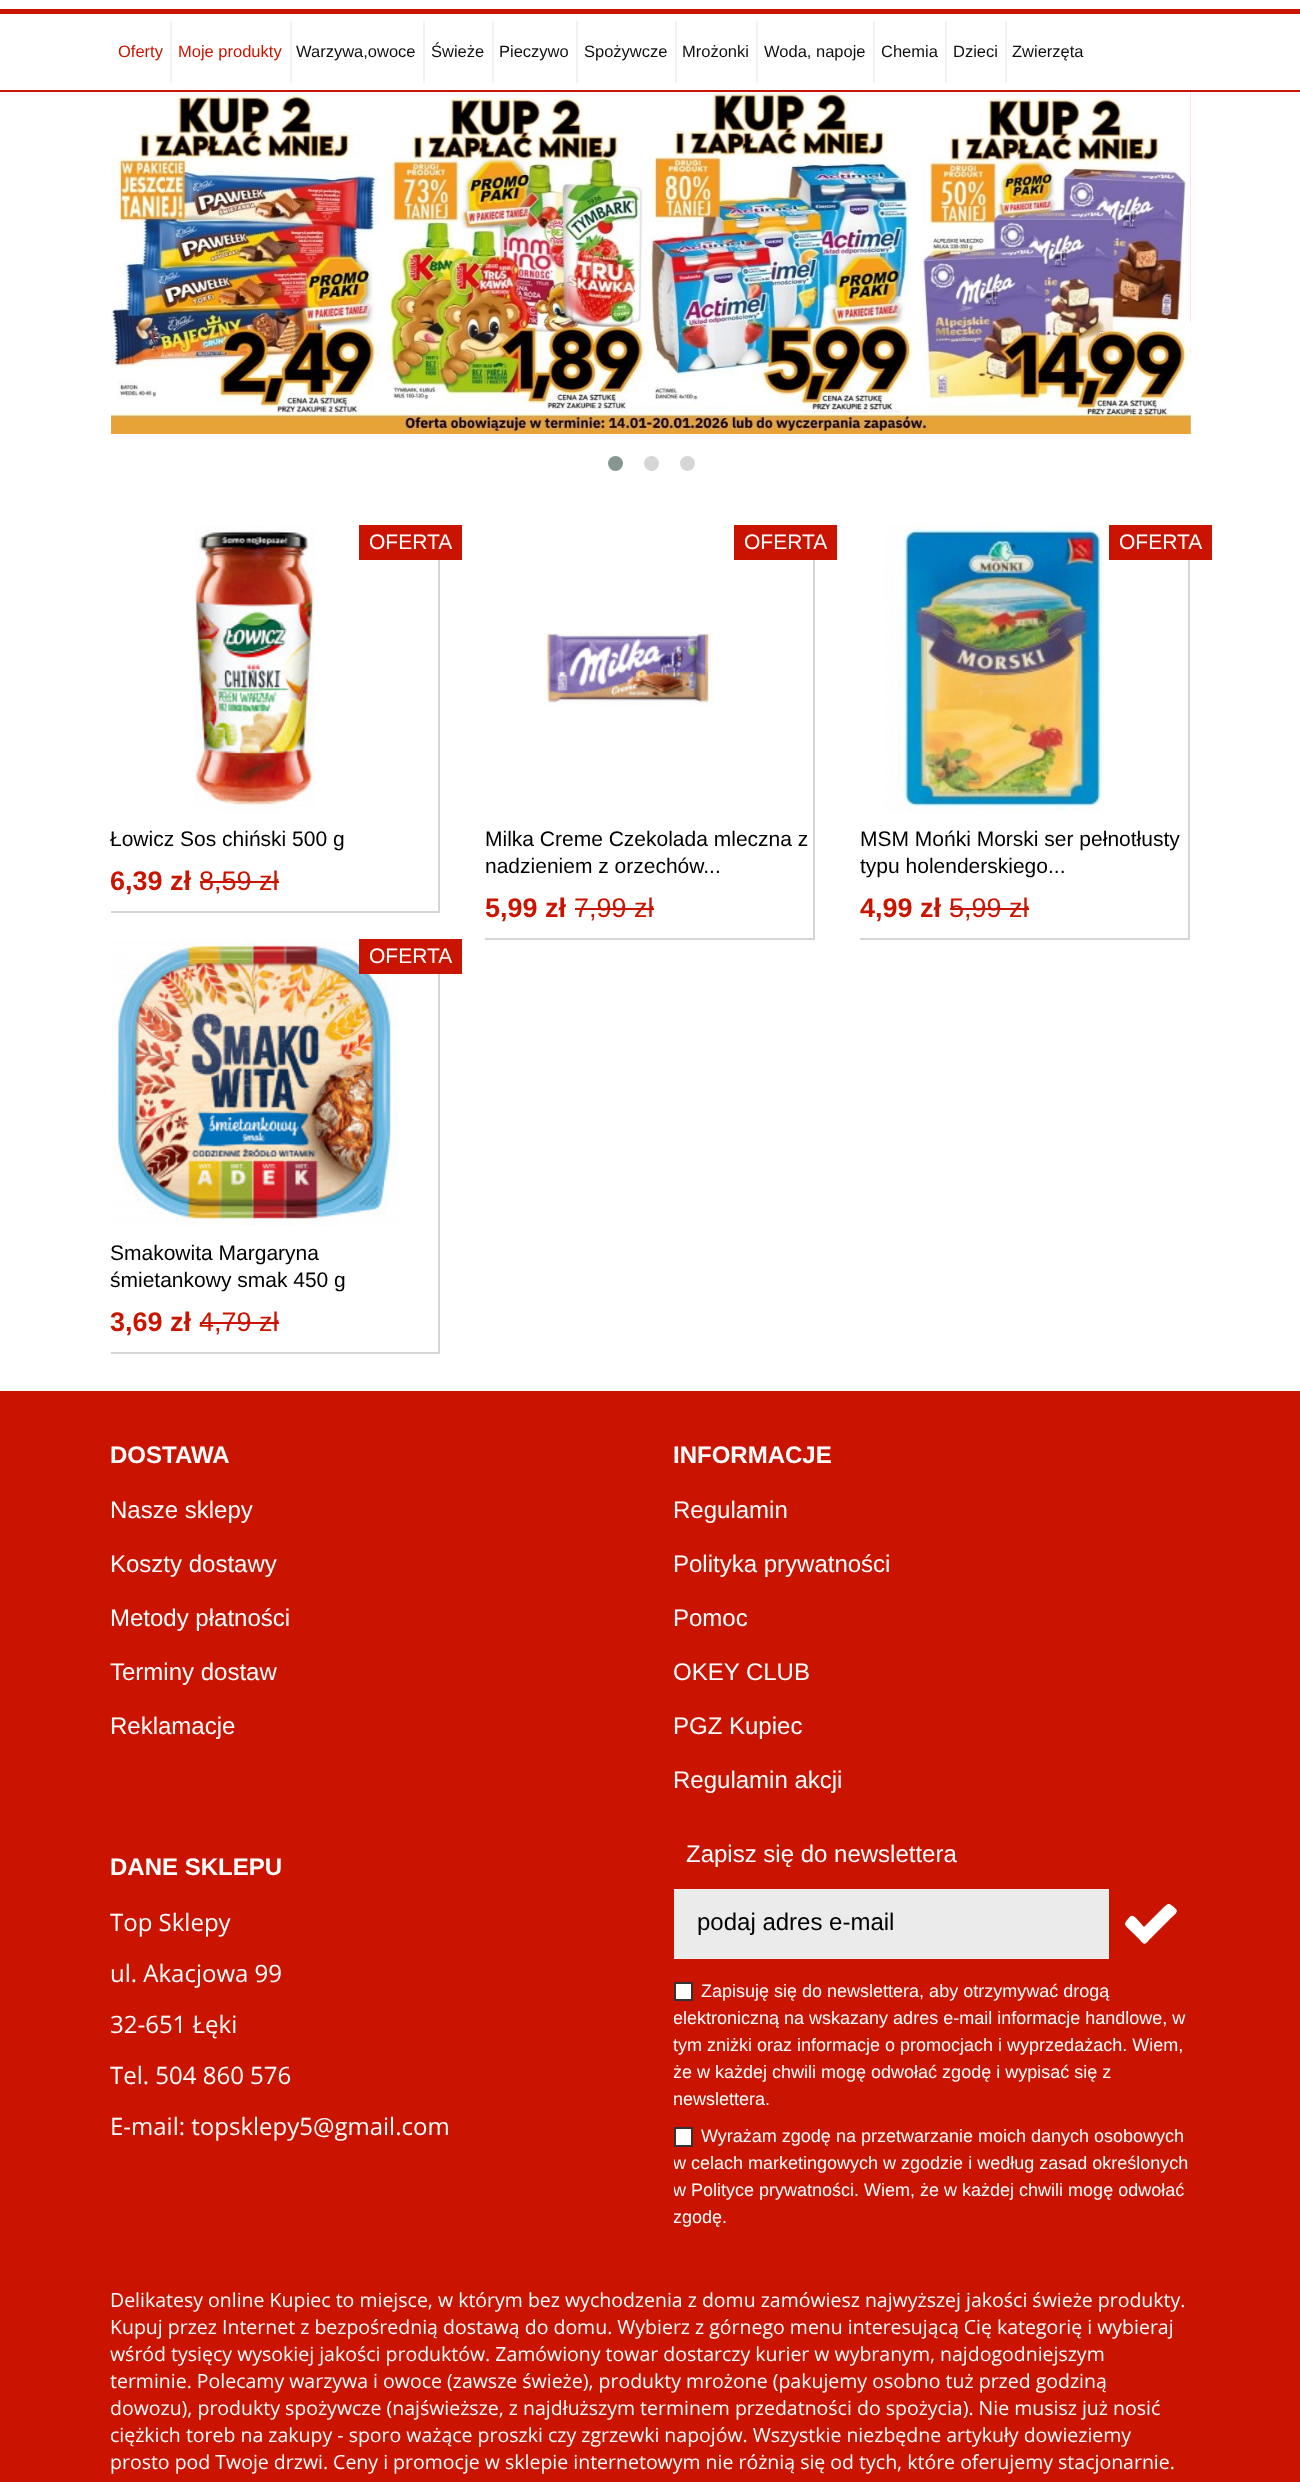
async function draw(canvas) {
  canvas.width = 1300;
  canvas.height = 2482;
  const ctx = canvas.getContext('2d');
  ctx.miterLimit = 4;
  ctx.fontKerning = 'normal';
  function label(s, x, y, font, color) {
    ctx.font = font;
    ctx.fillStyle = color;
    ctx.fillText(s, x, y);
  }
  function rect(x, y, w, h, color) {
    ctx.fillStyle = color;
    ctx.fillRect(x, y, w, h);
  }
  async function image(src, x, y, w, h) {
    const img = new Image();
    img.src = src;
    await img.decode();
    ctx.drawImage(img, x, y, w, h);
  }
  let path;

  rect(0, 0, 1300, 2482, '#fff');
  rect(0, 9, 1300, 5, '#ca1400');
  rect(0, 90, 1300, 2, '#ca1400');
  label('Oferty', 118, 57, '16.5px Liberation Sans', '#ca1400');
  rect(170, 21, 2, 62, '#f2f2f2');
  label('Moje produkty', 178, 57, '16.5px Liberation Sans', '#ca1400');
  rect(290, 21, 2, 62, '#f2f2f2');
  label('Warzywa,owoce', 296, 57, '16.5px Liberation Sans', '#0f0f0f');
  rect(423, 21, 2, 62, '#f2f2f2');
  label('Świeże', 431, 57, '16.5px Liberation Sans', '#0f0f0f');
  rect(492, 21, 2, 62, '#f2f2f2');
  label('Pieczywo', 499, 57, '16.5px Liberation Sans', '#0f0f0f');
  rect(576, 21, 2, 62, '#f2f2f2');
  label('Spożywcze', 584, 57, '16.5px Liberation Sans', '#0f0f0f');
  rect(675, 21, 2, 62, '#f2f2f2');
  label('Mrożonki', 682, 57, '16.5px Liberation Sans', '#0f0f0f');
  rect(756, 21, 2, 62, '#f2f2f2');
  label('Woda, napoje', 764, 57, '16.5px Liberation Sans', '#0f0f0f');
  rect(873, 21, 2, 62, '#f2f2f2');
  label('Chemia', 881, 57, '16.5px Liberation Sans', '#0f0f0f');
  rect(945, 21, 2, 62, '#f2f2f2');
  label('Dzieci', 953, 57, '16.5px Liberation Sans', '#0f0f0f');
  rect(1005, 21, 2, 62, '#f2f2f2');
  label('Zwierzęta', 1012, 57, '16.5px Liberation Sans', '#0f0f0f');
  await image('assets/img1.png', 111, 92, 1080, 342);
  await image('assets/img2.png', 1190, 92, 1, 342);
  ctx.fillStyle = '#869791';
  ctx.beginPath();
  ctx.arc(615.5, 463.5, 7.5, 0, 2 * Math.PI);
  ctx.fill();
  ctx.fillStyle = '#d6d6d6';
  ctx.beginPath();
  ctx.arc(651.5, 463.5, 7.5, 0, 2 * Math.PI);
  ctx.fill();
  ctx.beginPath();
  ctx.arc(687.5, 463.5, 7.5, 0, 2 * Math.PI);
  ctx.fill();
  rect(438, 560, 2, 352, '#d6d4d4');
  rect(111, 911, 329, 2, '#d6d4d4');
  await image('assets/img3.png', 194, 525, 121, 287);
  rect(359, 525, 103, 35, '#ca1400');
  label('OFERTA', 369, 549, '21px Liberation Sans', '#fff');
  label('Łowicz Sos chiński 500 g', 110, 846, '21px Liberation Sans', '#000');
  label('6,39 zł', 110, 890, 'bold 27px Liberation Sans', '#ca1400');
  label('8,59 zł', 199, 890, '27px Liberation Sans', '#ca1400');
  rect(200, 881, 79, 2, '#ca1400');
  rect(813, 560, 2, 379, '#d6d4d4');
  rect(485, 938, 330, 2, '#d6d4d4');
  rect(734, 525, 103, 35, '#ca1400');
  label('OFERTA', 744, 549, '21px Liberation Sans', '#fff');
  await image('assets/img4.png', 544, 633, 169, 72);
  label('Milka Creme Czekolada mleczna z', 485, 846, '21px Liberation Sans', '#000');
  label('nadzieniem z orzechów...', 485, 873, '21px Liberation Sans', '#000');
  label('5,99 zł', 485, 917, 'bold 27px Liberation Sans', '#ca1400');
  label('7,99 zł', 574, 917, '27px Liberation Sans', '#ca1400');
  rect(575, 908, 79, 2, '#ca1400');
  rect(1188, 560, 2, 379, '#d6d4d4');
  rect(860, 938, 330, 2, '#d6d4d4');
  await image('assets/img5.png', 884, 525, 218, 287);
  rect(1109, 525, 103, 35, '#ca1400');
  label('OFERTA', 1119, 549, '21px Liberation Sans', '#fff');
  label('MSM Mońki Morski ser pełnotłusty', 860, 846, '21px Liberation Sans', '#000');
  label('typu holenderskiego...', 860, 873, '21px Liberation Sans', '#000');
  label('4,99 zł', 860, 917, 'bold 27px Liberation Sans', '#ca1400');
  label('5,99 zł', 949, 917, '27px Liberation Sans', '#ca1400');
  rect(950, 908, 79, 2, '#ca1400');
  rect(438, 974, 2, 379, '#d6d4d4');
  rect(111, 1352, 329, 2, '#d6d4d4');
  await image('assets/img6.png', 111, 939, 287, 287);
  rect(359, 939, 103, 35, '#ca1400');
  label('OFERTA', 369, 963, '21px Liberation Sans', '#fff');
  label('Smakowita Margaryna', 110, 1260, '21px Liberation Sans', '#000');
  label('śmietankowy smak 450 g', 110, 1287, '21px Liberation Sans', '#000');
  label('3,69 zł', 110, 1331, 'bold 27px Liberation Sans', '#ca1400');
  label('4,79 zł', 199, 1331, '27px Liberation Sans', '#ca1400');
  rect(200, 1322, 79, 2, '#ca1400');
  rect(0, 1391, 1300, 1091, '#ca1400');
  label('DOSTAWA', 110, 1463, 'bold 24px Liberation Sans', '#fff');
  label('Nasze sklepy', 110, 1518, '24px Liberation Sans', '#fff');
  label('Koszty dostawy', 110, 1572, '24px Liberation Sans', '#fff');
  label('Metody płatności', 110, 1626, '24px Liberation Sans', '#fff');
  label('Terminy dostaw', 110, 1680, '24px Liberation Sans', '#fff');
  label('Reklamacje', 110, 1734, '24px Liberation Sans', '#fff');
  label('INFORMACJE', 673, 1463, 'bold 24px Liberation Sans', '#fff');
  label('Regulamin', 673, 1518, '24px Liberation Sans', '#fff');
  label('Polityka prywatności', 673, 1572, '24px Liberation Sans', '#fff');
  label('Pomoc', 673, 1626, '24px Liberation Sans', '#fff');
  label('OKEY CLUB', 673, 1680, '24px Liberation Sans', '#fff');
  label('PGZ Kupiec', 673, 1734, '24px Liberation Sans', '#fff');
  label('Regulamin akcji', 673, 1788, '24px Liberation Sans', '#fff');
  label('DANE SKLEPU', 110, 1875, 'bold 24px Liberation Sans', '#fff');
  label('Top Sklepy', 110, 1931, '24px Open Sans', '#fff');
  label('ul. Akacjowa 99', 110, 1982, '24px Open Sans', '#fff');
  label('32-651 Łęki', 110, 2033, '24px Open Sans', '#fff');
  label('Tel. 504 860 576', 110, 2084, '24px Open Sans', '#fff');
  label('E-mail: topsklepy5@gmail.com', 110, 2135, '24px Open Sans', '#fff');
  label('Zapisz się do newslettera', 686, 1862, '24px Liberation Sans', '#fff');
  rect(674, 1889, 435, 70, '#ebebeb');
  label('podaj adres e-mail', 697, 1930, '24px Liberation Sans', '#000');
  ctx.fillStyle = '#fff';
  path = new Path2D('M1176 1909C1179 1912 1173 1916 1171 1918L1149 1940C1145 1945 1144 1945 1140 1940L1132 1932C1126 1926 1122 1925 1128 1919C1131 1915 1132 1915 1136 1918L1144 1927L1163 1908C1169 1902 1169 1903 1176 1909Z');
  ctx.fill(path);
  ctx.beginPath();
  ctx.rect(675, 1983, 17, 17);
  ctx.fill();
  ctx.strokeStyle = '#333';
  ctx.lineWidth = 2;
  ctx.stroke();
  label('Zapisuję się do newslettera, aby otrzymywać drogą', 701, 1997, '18px Liberation Sans', '#fff');
  ctx.save();
  ctx.beginPath();
  ctx.rect(674, 1841, 517, 445);
  ctx.clip();
  label('elektroniczną na wskazany adres e-mail informacje handlowe, w', 673, 2024, '18px Liberation Sans', '#fff');
  ctx.restore();
  label('tym zniżki oraz informacje o promocjach i wyprzedażach. Wiem,', 673, 2051, '18px Liberation Sans', '#fff');
  ctx.save();
  ctx.beginPath();
  ctx.rect(674, 1841, 517, 445);
  ctx.clip();
  label('że w każdej chwili mogę odwołać zgodę i wypisać się z', 673, 2078, '18px Liberation Sans', '#fff');
  ctx.restore();
  label('newslettera.', 673, 2105, '18px Liberation Sans', '#fff');
  ctx.beginPath();
  ctx.rect(675, 2128, 17, 18);
  ctx.fill();
  ctx.stroke();
  label('Wyrażam zgodę na przetwarzanie moich danych osobowych', 701, 2142, '18px Liberation Sans', '#fff');
  ctx.save();
  ctx.beginPath();
  ctx.rect(674, 1841, 517, 445);
  ctx.clip();
  label('w celach marketingowych w zgodzie i według zasad określonych', 673, 2169, '18px Liberation Sans', '#fff');
  label('w Polityce prywatności. Wiem, że w każdej chwili mogę odwołać', 673, 2196, '18px Liberation Sans', '#fff');
  label('zgodę.', 673, 2223, '18px Liberation Sans', '#fff');
  ctx.restore();
  label('Delikatesy online Kupiec to miejsce, w którym bez wychodzenia z domu zamówiesz najwyższej jakości świeże produkty.', 110, 2307, '19.5px Open Sans', '#fff');
  label('Kupuj przez Internet z bezpośrednią dostawą do domu. Wybierz z górnego menu interesującą Cię kategorię i wybieraj', 110, 2334, '19.5px Open Sans', '#fff');
  label('wśród tysięcy wysokiej jakości produktów. Zamówiony towar dostarczy kurier w wybranym, najdogodniejszym', 110, 2361, '19.5px Open Sans', '#fff');
  label('terminie. Polecamy warzywa i owoce (zawsze świeże), produkty mrożone (pakujemy osobno tuż przed godziną', 110, 2388, '19.5px Open Sans', '#fff');
  label('dowozu), produkty spożywcze (najświeższe, z najdłuższym terminem przedatności do spożycia). Nie musisz już nosić', 110, 2415, '19.5px Open Sans', '#fff');
  label('ciężkich toreb na zakupy - sporo ważące proszki czy zgrzewki napojów. Wszystkie niezbędne artykuły dowieziemy', 110, 2442, '19.5px Open Sans', '#fff');
  label('prosto pod Twoje drzwi. Ceny i promocje w sklepie internetowym nie różnią się od tych, które oferujemy stacjonarnie.', 110, 2469, '19.5px Open Sans', '#fff');
}

draw(document.querySelector('canvas'));
